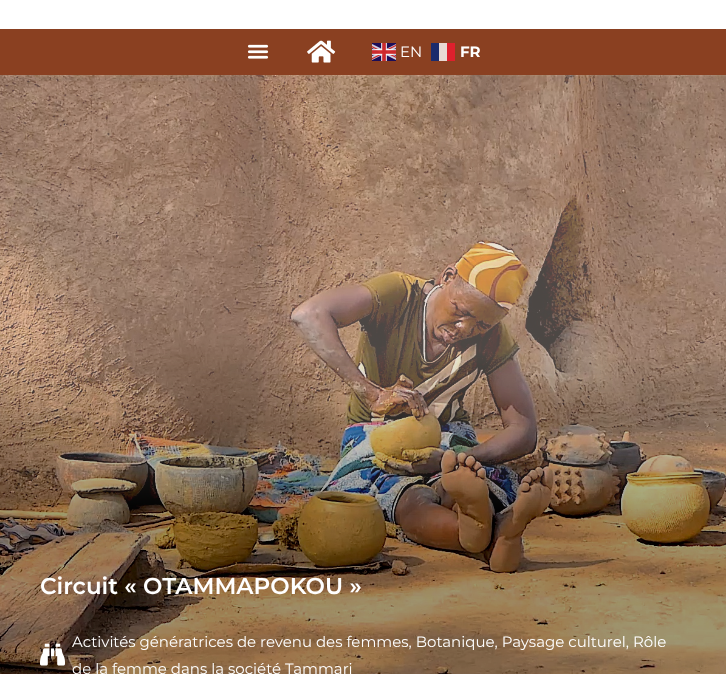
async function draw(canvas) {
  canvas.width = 726;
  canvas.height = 674;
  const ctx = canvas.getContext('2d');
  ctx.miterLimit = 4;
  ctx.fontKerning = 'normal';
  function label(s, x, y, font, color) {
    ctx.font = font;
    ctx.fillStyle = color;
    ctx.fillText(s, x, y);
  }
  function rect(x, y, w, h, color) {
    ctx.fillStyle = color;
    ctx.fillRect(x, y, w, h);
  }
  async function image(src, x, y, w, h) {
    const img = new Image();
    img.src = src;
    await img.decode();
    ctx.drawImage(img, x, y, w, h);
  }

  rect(0, 0, 726, 674, '#fff');
  rect(0, 29, 726, 46, '#8a4021');
  await image('assets/img1.png', 247, 44, 22, 15);
  await image('assets/img2.png', 307, 40, 29, 23);
  await image('assets/img3.png', 372, 43, 24, 18);
  label('EN', 400, 57, '15px Montserrat', '#fff');
  label('FR', 460, 57, 'bold 15px Montserrat', '#fff');
  rect(439, 43, 8, 18, '#e8d9d3');
  rect(431, 43, 8, 18, '#1c2b6c');
  rect(447, 43, 8, 18, '#de202d');
  await image('assets/img4.png', 0, 75, 726, 599);
  label('Circuit « OTAMMAPOKOU »', 40, 594, '600 23px Montserrat', '#fff');
  await image('assets/img5.png', 40, 643, 25, 23);
  label('Activités génératrices de revenu des femmes, Botanique, Paysage culturel, Rôle', 72, 647, '15px Montserrat', '#fff');
  label('de la femme dans la société Tammari', 72, 674, '15px Montserrat', '#fff');
}

draw(document.querySelector('canvas'));
